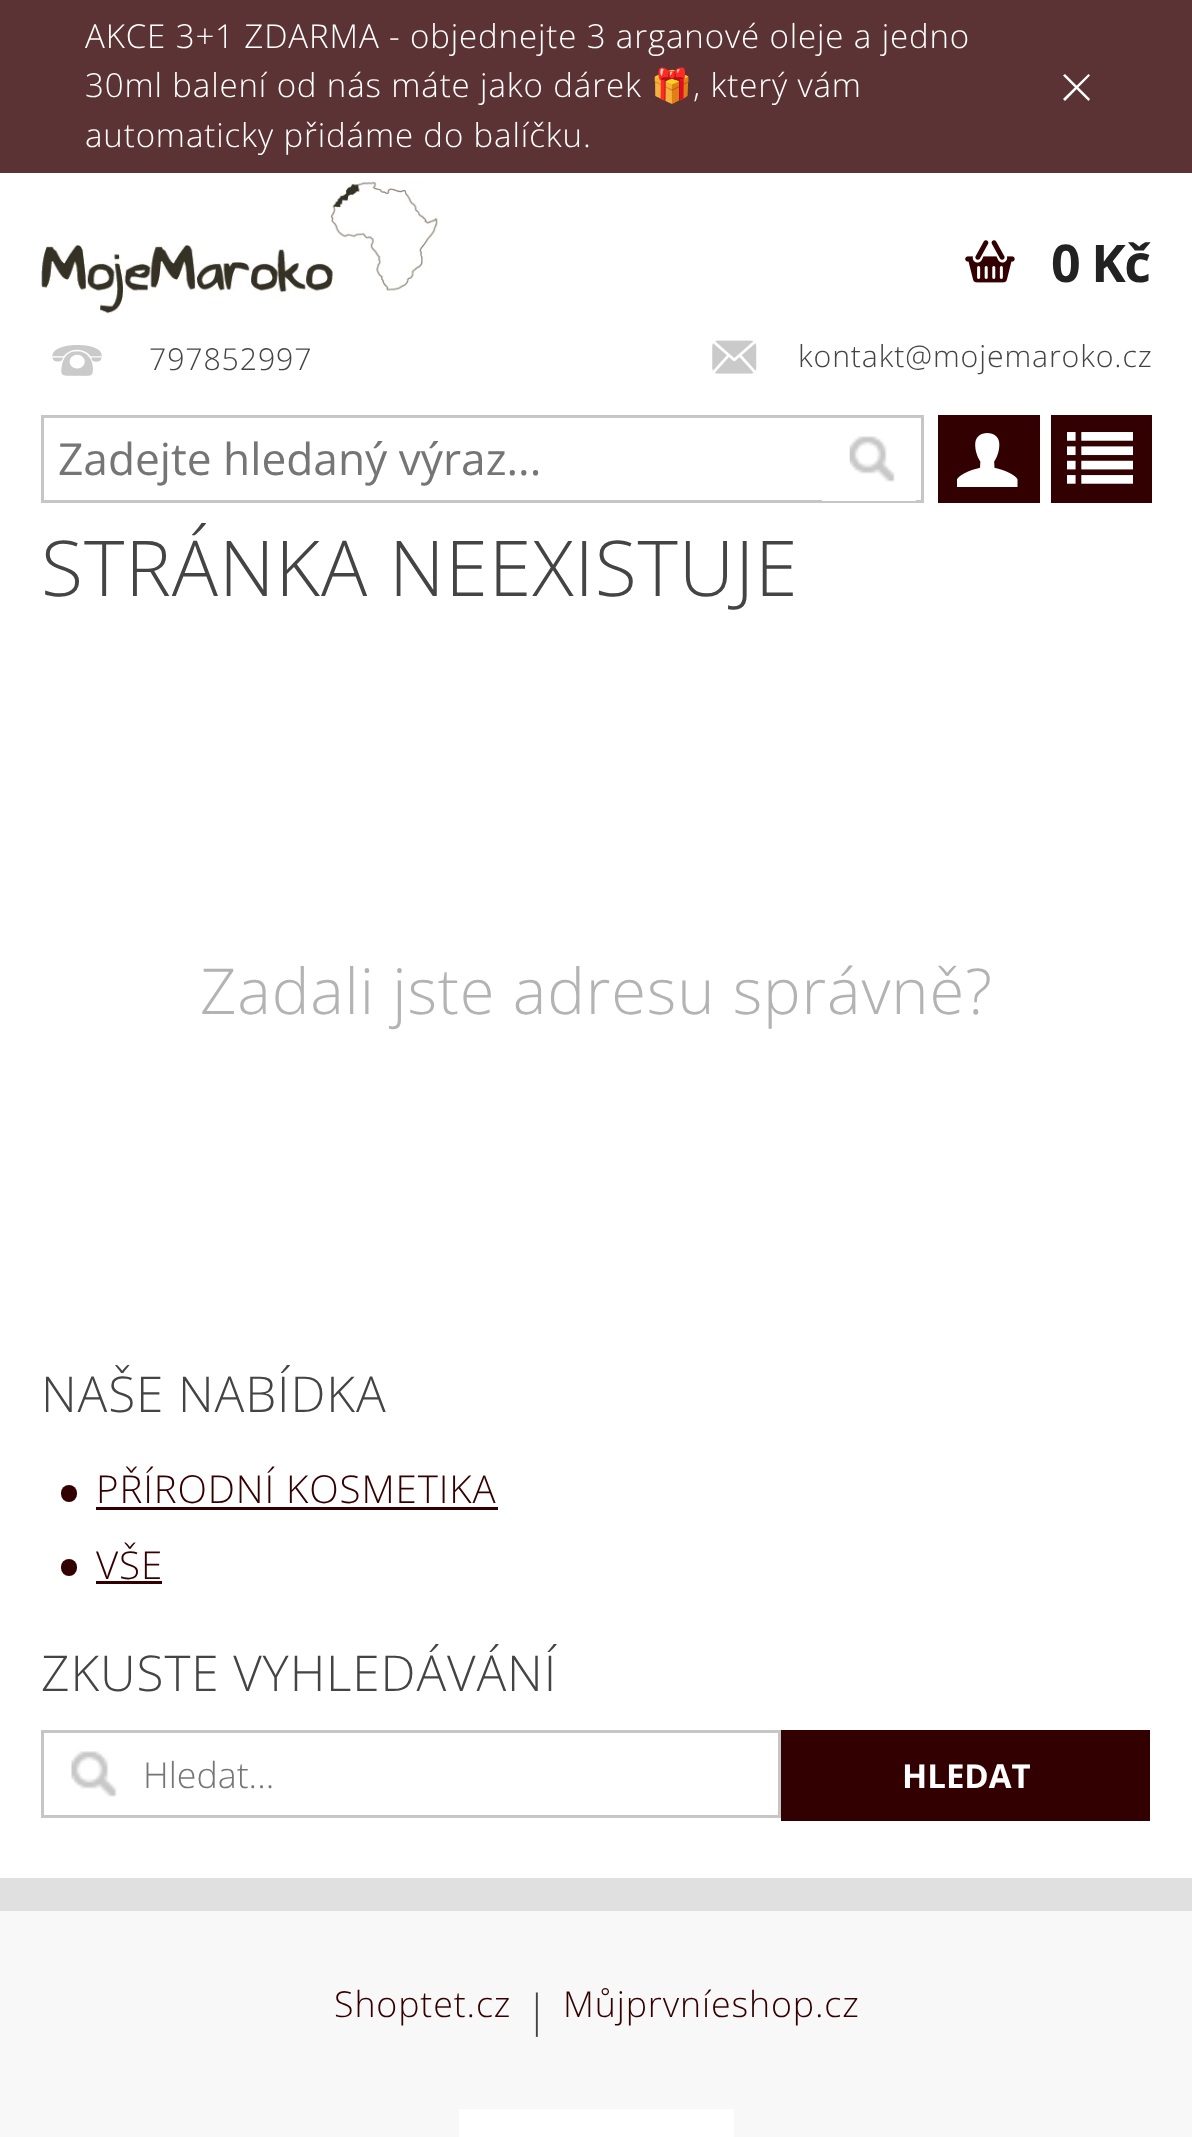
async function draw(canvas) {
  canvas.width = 1192;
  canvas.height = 2137;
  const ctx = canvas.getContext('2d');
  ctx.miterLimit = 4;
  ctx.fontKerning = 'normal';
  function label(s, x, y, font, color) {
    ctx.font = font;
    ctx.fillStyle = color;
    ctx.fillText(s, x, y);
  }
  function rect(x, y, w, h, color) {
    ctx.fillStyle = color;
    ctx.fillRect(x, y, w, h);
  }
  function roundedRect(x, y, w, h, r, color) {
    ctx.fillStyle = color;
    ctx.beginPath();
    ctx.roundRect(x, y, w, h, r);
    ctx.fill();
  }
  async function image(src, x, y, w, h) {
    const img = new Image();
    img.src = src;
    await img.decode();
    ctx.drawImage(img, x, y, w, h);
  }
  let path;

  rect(0, 0, 1192, 2137, '#fff');
  rect(0, 0, 1192, 173, '#5c3334');
  ctx.letterSpacing = '0.88px';
  label('AKCE 3+1 ZDARMA - objednejte 3 arganové oleje a jedno', 85, 48, '300 33px Open Sans', '#fff');
  label('30ml balení od nás máte jako dárek', 85, 97, '300 33px Open Sans', '#fff');
  label('🎁', 651, 97, '33px Noto Color Emoji', '#fff');
  label(', který vám', 693, 97, '300 33px Open Sans', '#fff');
  label('automaticky přidáme do balíčku.', 85, 147, '300 33px Open Sans', '#fff');
  path = new Path2D('M1065 74L1090 99L1088.5 101L1063 75.5Z');
  ctx.fill(path);
  path = new Path2D('M1088.5 74L1090 75.5L1065 101L1063 99Z');
  ctx.fill(path);
  await image('assets/img1.png', 41, 181, 398, 133);
  await image('assets/img2.png', 965, 240, 50, 43);
  ctx.letterSpacing = '-1.5px';
  label('0 Kč', 1051, 282, 'bold 52px Open Sans', '#222');
  rect(938, 415, 102, 88, '#330001');
  await image('assets/img3.png', 957, 433, 61, 54);
  await image('assets/img4.png', 52, 345, 50, 31);
  ctx.letterSpacing = '0.88px';
  label('797852997', 149, 370, '300 30.25px Open Sans', '#444');
  await image('assets/img5.png', 712, 340, 45, 34);
  label('kontakt@mojemaroko.cz', 798, 367, '300 30.25px Open Sans', '#444');
  ctx.strokeStyle = '#c6c6c6';
  ctx.lineWidth = 3;
  ctx.strokeRect(42.5, 416.5, 880, 85);
  ctx.letterSpacing = '0px';
  label('Zadejte hledaný výraz...', 58, 475, '44.25px Open Sans', '#757575');
  rect(822, 500, 94, 1, '#fff');
  await image('assets/img6.png', 849, 436, 46, 46);
  rect(1051, 415, 101, 88, '#330001');
  await image('assets/img7.png', 1067, 432, 66, 52);
  ctx.letterSpacing = '0.88px';
  label('STRÁNKA NEEXISTUJE', 41, 596, '300 77px Open Sans', '#444');
  label('Zadali jste adresu správně?', 200, 1014, '300 63.25px Open Sans', '#b3b3b3');
  label('NAŠE NABÍDKA', 41, 1412, '300 49.5px Open Sans', '#444');
  roundedRect(61, 1485, 16, 17, 8, '#330001');
  label('PŘÍRODNÍ KOSMETIKA', 96, 1503, '300 38.5px Open Sans', '#330001');
  rect(96, 1507, 402, 3, '#330001');
  roundedRect(61, 1559, 16, 17, 8, '#330001');
  label('VŠE', 96, 1579, '300 38.5px Open Sans', '#330001');
  rect(96, 1581, 66, 3, '#330001');
  label('ZKUSTE VYHLEDÁVÁNÍ', 41, 1691, '300 49.5px Open Sans', '#444');
  await image('assets/img8.png', 71, 1751, 46, 46);
  ctx.strokeRect(42.5, 1731.5, 737, 85);
  ctx.letterSpacing = '0px';
  label('Hledat...', 143, 1788, '300 35.75px Open Sans', '#757575');
  rect(781, 1730, 369, 91, '#330001');
  label('HLEDAT', 902, 1788, 'bold 33px Open Sans', '#fff');
  rect(0, 1911, 1192, 226, '#f8f8f8');
  rect(0, 1878, 1192, 33, '#e0e0e0');
  ctx.letterSpacing = '0.88px';
  label('Shoptet.cz', 334, 2017, '300 35.75px Open Sans', '#330001');
  label('|', 525, 2026, '300 44px Open Sans', '#444');
  label('Můjprvníeshop.cz', 563, 2017, '300 35.75px Open Sans', '#330001');
  rect(459, 2109, 275, 28, '#fff');
}

draw(document.querySelector('canvas'));
